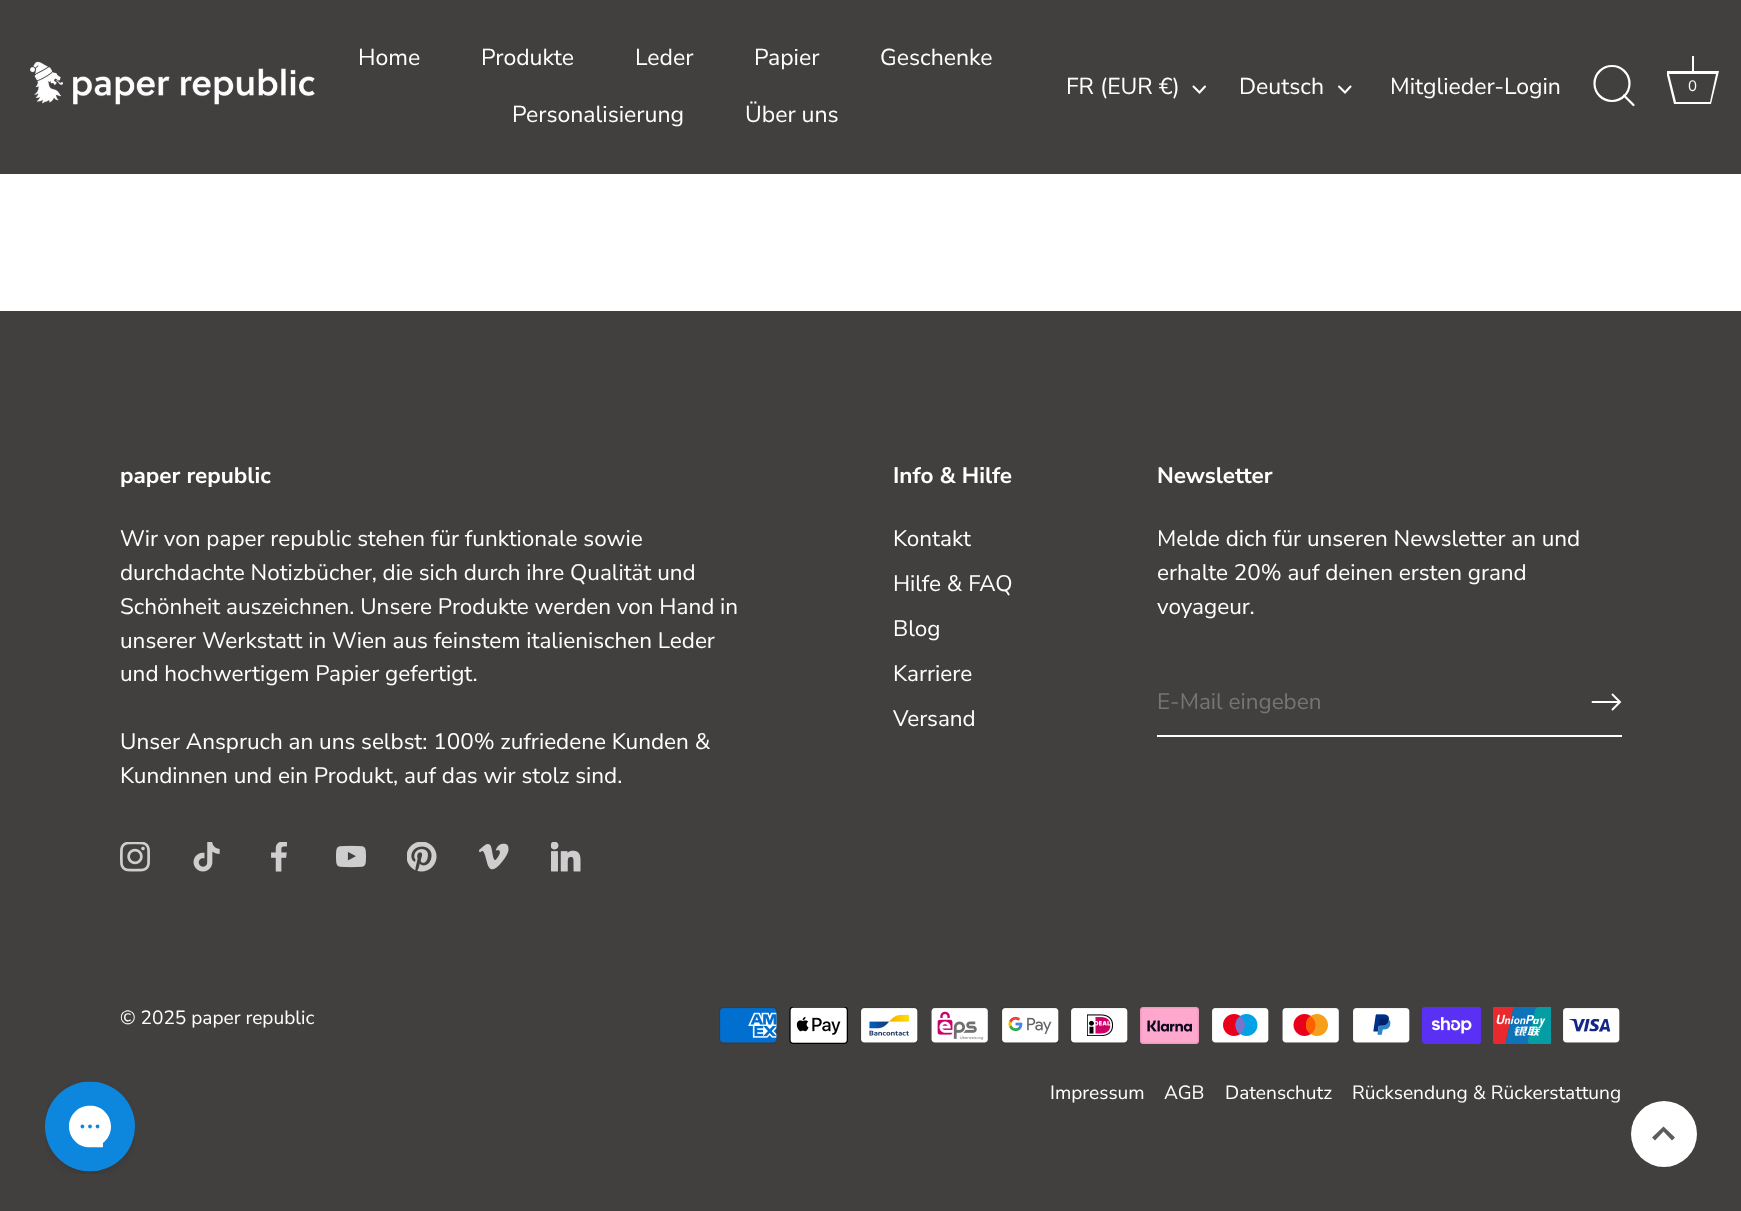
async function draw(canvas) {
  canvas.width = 1741;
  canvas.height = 1211;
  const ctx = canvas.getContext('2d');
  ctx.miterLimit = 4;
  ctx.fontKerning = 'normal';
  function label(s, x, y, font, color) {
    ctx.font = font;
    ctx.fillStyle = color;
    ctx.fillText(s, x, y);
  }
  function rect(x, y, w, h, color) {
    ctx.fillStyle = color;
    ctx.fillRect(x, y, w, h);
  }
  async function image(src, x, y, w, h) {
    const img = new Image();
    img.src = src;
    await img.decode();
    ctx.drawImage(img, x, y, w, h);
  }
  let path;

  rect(0, 0, 1741, 1211, '#fff');
  rect(0, 0, 1741, 174, '#423f3f');
  await image('assets/img1.png', 30, 61, 285, 44);
  label('Home', 358, 65, '23px Nunito Sans', '#fff');
  label('Produkte', 481, 65, '23px Nunito Sans', '#fff');
  label('Leder', 635, 65, '23px Nunito Sans', '#fff');
  label('Papier', 754, 65, '23px Nunito Sans', '#fff');
  label('Geschenke', 880, 65, '23px Nunito Sans', '#fff');
  label('Personalisierung', 512, 122, '23px Nunito Sans', '#fff');
  label('Über uns', 745, 122, '23px Nunito Sans', '#fff');
  label('FR (EUR €)', 1066, 94, '23px Nunito Sans', '#fff');
  path = new Path2D('M1193.5 86.5L1199.5 92.5L1205 86.5');
  ctx.strokeStyle = '#fff';
  ctx.lineWidth = 2.1;
  ctx.lineCap = 'round';
  ctx.stroke(path);
  label('Deutsch', 1239, 94, '23px Nunito Sans', '#fff');
  path = new Path2D('M1339 86.5L1345 92.5L1350.5 86.5');
  ctx.stroke(path);
  label('Mitglieder-Login', 1390, 94, '23px Nunito Sans', '#fff');
  ctx.beginPath();
  ctx.arc(1612, 83.5, 17.5, 0, 2 * Math.PI);
  ctx.lineWidth = 2.2;
  ctx.stroke();
  path = new Path2D('M1633.5 105L1624 95.5');
  ctx.lineJoin = 'round';
  ctx.stroke(path);
  rect(1692, 56, 2, 15, '#fff');
  ctx.save();
  ctx.beginPath();
  ctx.rect(1667, 54, 52, 53);
  ctx.clip();
  path = new Path2D('M1716 74L1710 102H1676L1669 74H1716M1719 71H1666L1674 104H1711Z');
  ctx.fill(path);
  ctx.restore();
  label('0', 1688, 91, '15px Nunito Sans', '#fff');
  rect(0, 311, 1741, 900, '#423f3f');
  label('paper republic', 120, 483, 'bold 22.5px Nunito Sans', '#fff');
  label('Wir von paper republic stehen für funktionale sowie', 120, 546, '22.5px Nunito Sans', '#fff');
  label('durchdachte Notizbücher, die sich durch ihre Qualität und', 120, 580, '22.5px Nunito Sans', '#fff');
  label('Schönheit auszeichnen. Unsere Produkte werden von Hand in', 120, 614, '22.5px Nunito Sans', '#fff');
  label('unserer Werkstatt in Wien aus feinstem italienischen Leder', 120, 648, '22.5px Nunito Sans', '#fff');
  label('und hochwertigem Papier gefertigt.', 120, 681, '22.5px Nunito Sans', '#fff');
  label('Unser Anspruch an uns selbst: 100% zufriedene Kunden &', 120, 749, '22.5px Nunito Sans', '#fff');
  label('Kundinnen und ein Produkt, auf das wir stolz sind.', 120, 783, '22.5px Nunito Sans', '#fff');
  await image('assets/img2.png', 120, 842, 30, 30);
  await image('assets/img3.png', 193, 842, 27, 30);
  await image('assets/img4.png', 271, 842, 16, 30);
  await image('assets/img5.png', 336, 845, 30, 23);
  await image('assets/img6.png', 407, 842, 30, 30);
  await image('assets/img7.png', 479, 843, 30, 27);
  await image('assets/img8.png', 551, 842, 30, 30);
  label('Info & Hilfe', 893, 483, 'bold 22.5px Nunito Sans', '#fff');
  label('Kontakt', 893, 546, '22.5px Nunito Sans', '#fff');
  label('Hilfe & FAQ', 893, 591, '22.5px Nunito Sans', '#fff');
  label('Blog', 893, 636, '22.5px Nunito Sans', '#fff');
  label('Karriere', 893, 681, '22.5px Nunito Sans', '#fff');
  label('Versand', 893, 726, '22.5px Nunito Sans', '#fff');
  label('Newsletter', 1157, 483, 'bold 22.5px Nunito Sans', '#fff');
  label('Melde dich für unseren Newsletter an und', 1157, 546, '22.5px Nunito Sans', '#fff');
  label('erhalte 20% auf deinen ersten grand', 1157, 580, '22.5px Nunito Sans', '#fff');
  label('voyageur.', 1157, 614, '22.5px Nunito Sans', '#fff');
  rect(1157, 735, 465, 2, '#fff');
  label('E-Mail eingeben', 1157, 709, '22.5px Nunito Sans', '#757575');
  path = new Path2D('M1612.5 709.5L1620 702L1612.5 694.5');
  ctx.lineWidth = 1.9;
  ctx.lineJoin = 'miter';
  ctx.stroke(path);
  path = new Path2D('M1619 702H1592.5');
  ctx.lineJoin = 'round';
  ctx.stroke(path);
  label('© 2025 paper republic', 120, 1024, '19.1px Nunito Sans', '#fff');
  await image('assets/img9.png', 719, 1007, 58, 37);
  await image('assets/img10.png', 789, 1007, 59, 37);
  await image('assets/img11.png', 860, 1007, 58, 37);
  await image('assets/img12.png', 931, 1008, 57, 35);
  await image('assets/img13.png', 1001, 1007, 58, 37);
  await image('assets/img14.png', 1070, 1007, 58, 37);
  await image('assets/img15.png', 1140, 1007, 59, 37);
  await image('assets/img16.png', 1212, 1008, 57, 35);
  await image('assets/img17.png', 1282, 1008, 57, 35);
  await image('assets/img18.png', 1353, 1008, 57, 35);
  await image('assets/img19.png', 1422, 1007, 59, 37);
  await image('assets/img20.png', 1493, 1007, 58, 37);
  await image('assets/img21.png', 1563, 1008, 57, 35);
  label('Impressum', 1050, 1099, '19.1px Nunito Sans', '#fff');
  label('AGB', 1164, 1099, '19.1px Nunito Sans', '#fff');
  label('Datenschutz', 1225, 1099, '19.1px Nunito Sans', '#fff');
  label('Rücksendung & Rückerstattung', 1352, 1099, '19.1px Nunito Sans', '#fff');
  await image('assets/img22.png', 45, 1081, 90, 93);
  ctx.beginPath();
  ctx.arc(1664, 1134, 33, 0, 2 * Math.PI);
  ctx.fill();
  ctx.fillStyle = '#5e5c5c';
  path = new Path2D('M1672 1140.5L1663.5 1131.5L1655 1140.5L1652 1137.5L1663.5 1126.5L1675 1137.5Z');
  ctx.fill(path);
}

draw(document.querySelector('canvas'));
